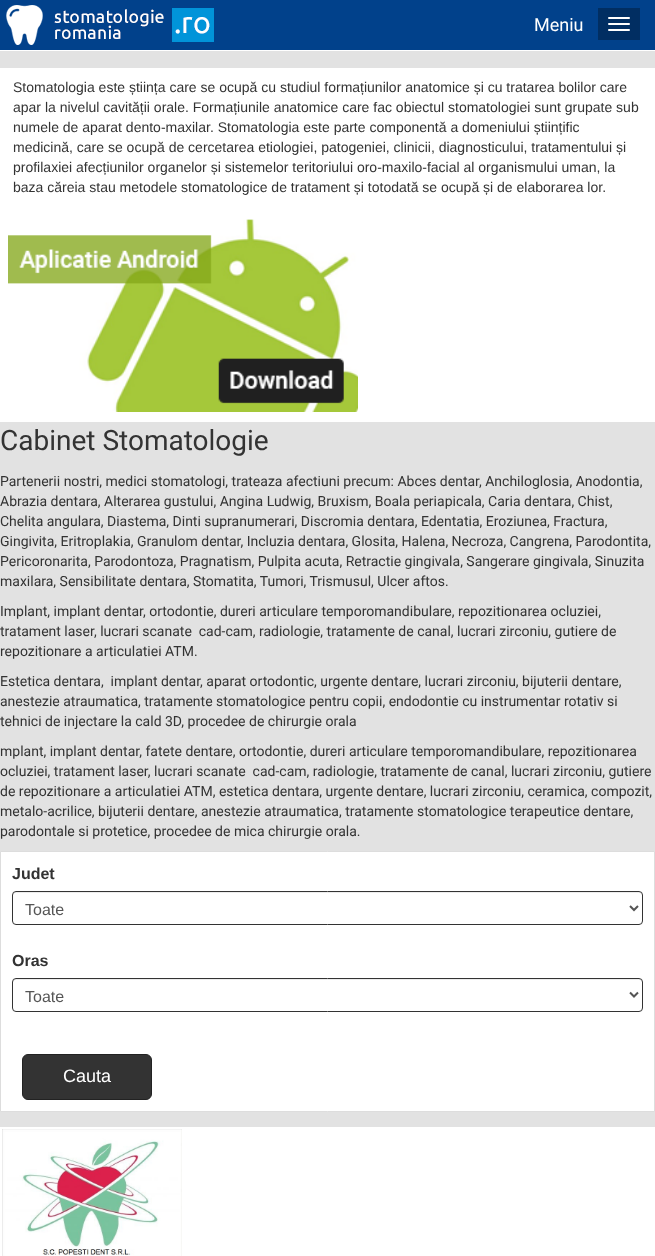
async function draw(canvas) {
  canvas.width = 655;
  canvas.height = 1256;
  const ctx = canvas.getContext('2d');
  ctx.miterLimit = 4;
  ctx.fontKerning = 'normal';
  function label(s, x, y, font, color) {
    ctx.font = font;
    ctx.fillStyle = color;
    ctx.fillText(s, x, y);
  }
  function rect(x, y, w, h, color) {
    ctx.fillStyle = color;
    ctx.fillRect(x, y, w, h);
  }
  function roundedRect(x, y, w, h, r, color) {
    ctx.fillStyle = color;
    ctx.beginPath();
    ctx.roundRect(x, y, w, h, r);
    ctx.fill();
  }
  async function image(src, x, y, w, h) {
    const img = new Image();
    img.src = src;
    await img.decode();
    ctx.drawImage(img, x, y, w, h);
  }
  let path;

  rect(0, 0, 655, 1256, '#01418b');
  await image('assets/img1.png', 6, 5, 208, 40);
  label('Meniu', 534, 31, '18px Roboto', '#fff');
  rect(598, 8, 42, 32, '#012e62');
  roundedRect(608, 17, 22, 2, 1, '#fff');
  roundedRect(608, 23, 22, 2, 1, '#fff');
  roundedRect(608, 29, 22, 2, 1, '#fff');
  rect(0, 51, 655, 1076, '#e2e2e2');
  rect(0, 50, 655, 1, '#fff');
  rect(0, 68, 655, 354, '#fff');
  label('Stomatologia este știința care se ocupă cu studiul formațiunilor anatomice și cu tratarea bolilor care', 13, 92, '14px Liberation Sans', '#333');
  label('apar la nivelul cavității orale. Formațiunile anatomice care fac obiectul stomatologiei sunt grupate sub', 13, 112, '14px Liberation Sans', '#333');
  label('numele de aparat dento-maxilar. Stomatologia este parte componentă a domeniului științific', 13, 132, '14px Liberation Sans', '#333');
  label('medicină, care se ocupă de cercetarea etiologiei, patogeniei, clinicii, diagnosticului, tratamentului și', 13, 152, '14px Liberation Sans', '#333');
  label('profilaxiei afecțiunilor organelor și sistemelor teritoriului oro-maxilo-facial al organismului uman, la', 13, 172, '14px Liberation Sans', '#333');
  label('baza căreia stau metodele stomatologice de tratament și totodată se ocupă și de elaborarea lor.', 13, 192, '14px Liberation Sans', '#333');
  await image('assets/img2.png', 8, 219, 350, 193);
  label('Cabinet Stomatologie', 0, 450, '28px Roboto', '#333');
  label('Partenerii nostri, medici stomatologi, trateaza afectiuni precum: Abces dentar, Anchiloglosia, Anodontia,', 0, 486, '14px Roboto', '#333');
  label('Abrazia dentara, Alterarea gustului, Angina Ludwig, Bruxism, Boala periapicala, Caria dentara, Chist,', 0, 506, '14px Roboto', '#333');
  label('Chelita angulara, Diastema, Dinti supranumerari, Discromia dentara, Edentatia, Eroziunea, Fractura,', 0, 526, '14px Roboto', '#333');
  label('Gingivita, Eritroplakia, Granulom dentar, Incluzia dentara, Glosita, Halena, Necroza, Cangrena, Parodontita,', 0, 546, '14px Roboto', '#333');
  label('Pericoronarita, Parodontoza, Pragnatism, Pulpita acuta, Retractie gingivala, Sangerare gingivala, Sinuzita', 0, 566, '14px Roboto', '#333');
  label('maxilara, Sensibilitate dentara, Stomatita, Tumori, Trismusul, Ulcer aftos.', 0, 586, '14px Roboto', '#333');
  label('Implant, implant dentar, ortodontie, dureri articulare temporomandibulare, repozitionarea ocluziei,', 0, 616, '14px Roboto', '#333');
  label('tratament laser, lucrari scanate  cad-cam, radiologie, tratamente de canal, lucrari zirconiu, gutiere de', 0, 636, '14px Roboto', '#333');
  label('repozitionare a articulatiei ATM.', 0, 656, '14px Roboto', '#333');
  label('Estetica dentara,  implant dentar, aparat ortodontic, urgente dentare, lucrari zirconiu, bijuterii dentare,', 0, 686, '14px Roboto', '#333');
  label('anestezie atraumatica, tratamente stomatologice pentru copii, endodontie cu instrumentar rotativ si', 0, 706, '14px Roboto', '#333');
  label('tehnici de injectare la cald 3D, procedee de chirurgie orala', 0, 726, '14px Roboto', '#333');
  label('mplant, implant dentar, fatete dentare, ortodontie, dureri articulare temporomandibulare, repozitionarea', 0, 756, '14px Roboto', '#333');
  label('ocluziei, tratament laser, lucrari scanate  cad-cam, radiologie, tratamente de canal, lucrari zirconiu, gutiere', 0, 776, '14px Roboto', '#333');
  label('de repozitionare a articulatiei ATM, estetica dentara, urgente dentare, lucrari zirconiu, ceramica, compozit,', 0, 796, '14px Roboto', '#333');
  label('metalo-acrilice, bijuterii dentare, anestezie atraumatica, tratamente stomatologice terapeutice dentare,', 0, 816, '14px Roboto', '#333');
  label('parodontale si protetice, procedee de mica chirurgie orala.', 0, 836, '14px Roboto', '#333');
  ctx.fillStyle = '#fff';
  ctx.beginPath();
  ctx.rect(0.5, 851.5, 654, 260);
  ctx.fill();
  ctx.strokeStyle = '#ddd';
  ctx.stroke();
  label('Judet', 12, 879, 'bold 16px Liberation Sans', '#333');
  ctx.fillStyle = '#ececec';
  path = new Path2D('M16 893H639C641 893 642 894 642 896V895C642 893 641 892 639 892H16C14 892 13 893 13 895V896C13 894 14 893 16 893Z');
  ctx.fill(path);
  ctx.beginPath();
  ctx.roundRect(12.5, 891.5, 630, 33, 3.5);
  ctx.strokeStyle = '#333';
  ctx.stroke();
  path = new Path2D('M630 906L634 910L638 906');
  ctx.strokeStyle = '#555';
  ctx.lineWidth = 2;
  ctx.stroke(path);
  label('Toate', 25, 915, '16px Liberation Sans', '#555');
  label('Oras', 12, 966, 'bold 16px Liberation Sans', '#333');
  ctx.fillStyle = '#ececec';
  path = new Path2D('M16 980H639C641 980 642 981 642 983V982C642 980 641 979 639 979H16C14 979 13 980 13 982V983C13 981 14 980 16 980Z');
  ctx.fill(path);
  ctx.beginPath();
  ctx.roundRect(12.5, 978.5, 630, 33, 3.5);
  ctx.strokeStyle = '#333';
  ctx.lineWidth = 1;
  ctx.stroke();
  path = new Path2D('M630 992.5L634 996.5L638 992.5');
  ctx.strokeStyle = '#555';
  ctx.lineWidth = 2;
  ctx.stroke(path);
  label('Toate', 25, 1002, '16px Liberation Sans', '#555');
  ctx.fillStyle = '#333';
  ctx.beginPath();
  ctx.roundRect(22.5, 1054.5, 129, 45, 5.5);
  ctx.fill();
  ctx.strokeStyle = '#222';
  ctx.lineWidth = 1;
  ctx.stroke();
  label('Cauta', 63, 1082, '18px Liberation Sans', '#fff');
  rect(0, 1127, 655, 129, '#fff');
  await image('assets/img3.png', 2, 1129, 180, 127);
}

draw(document.querySelector('canvas'));
